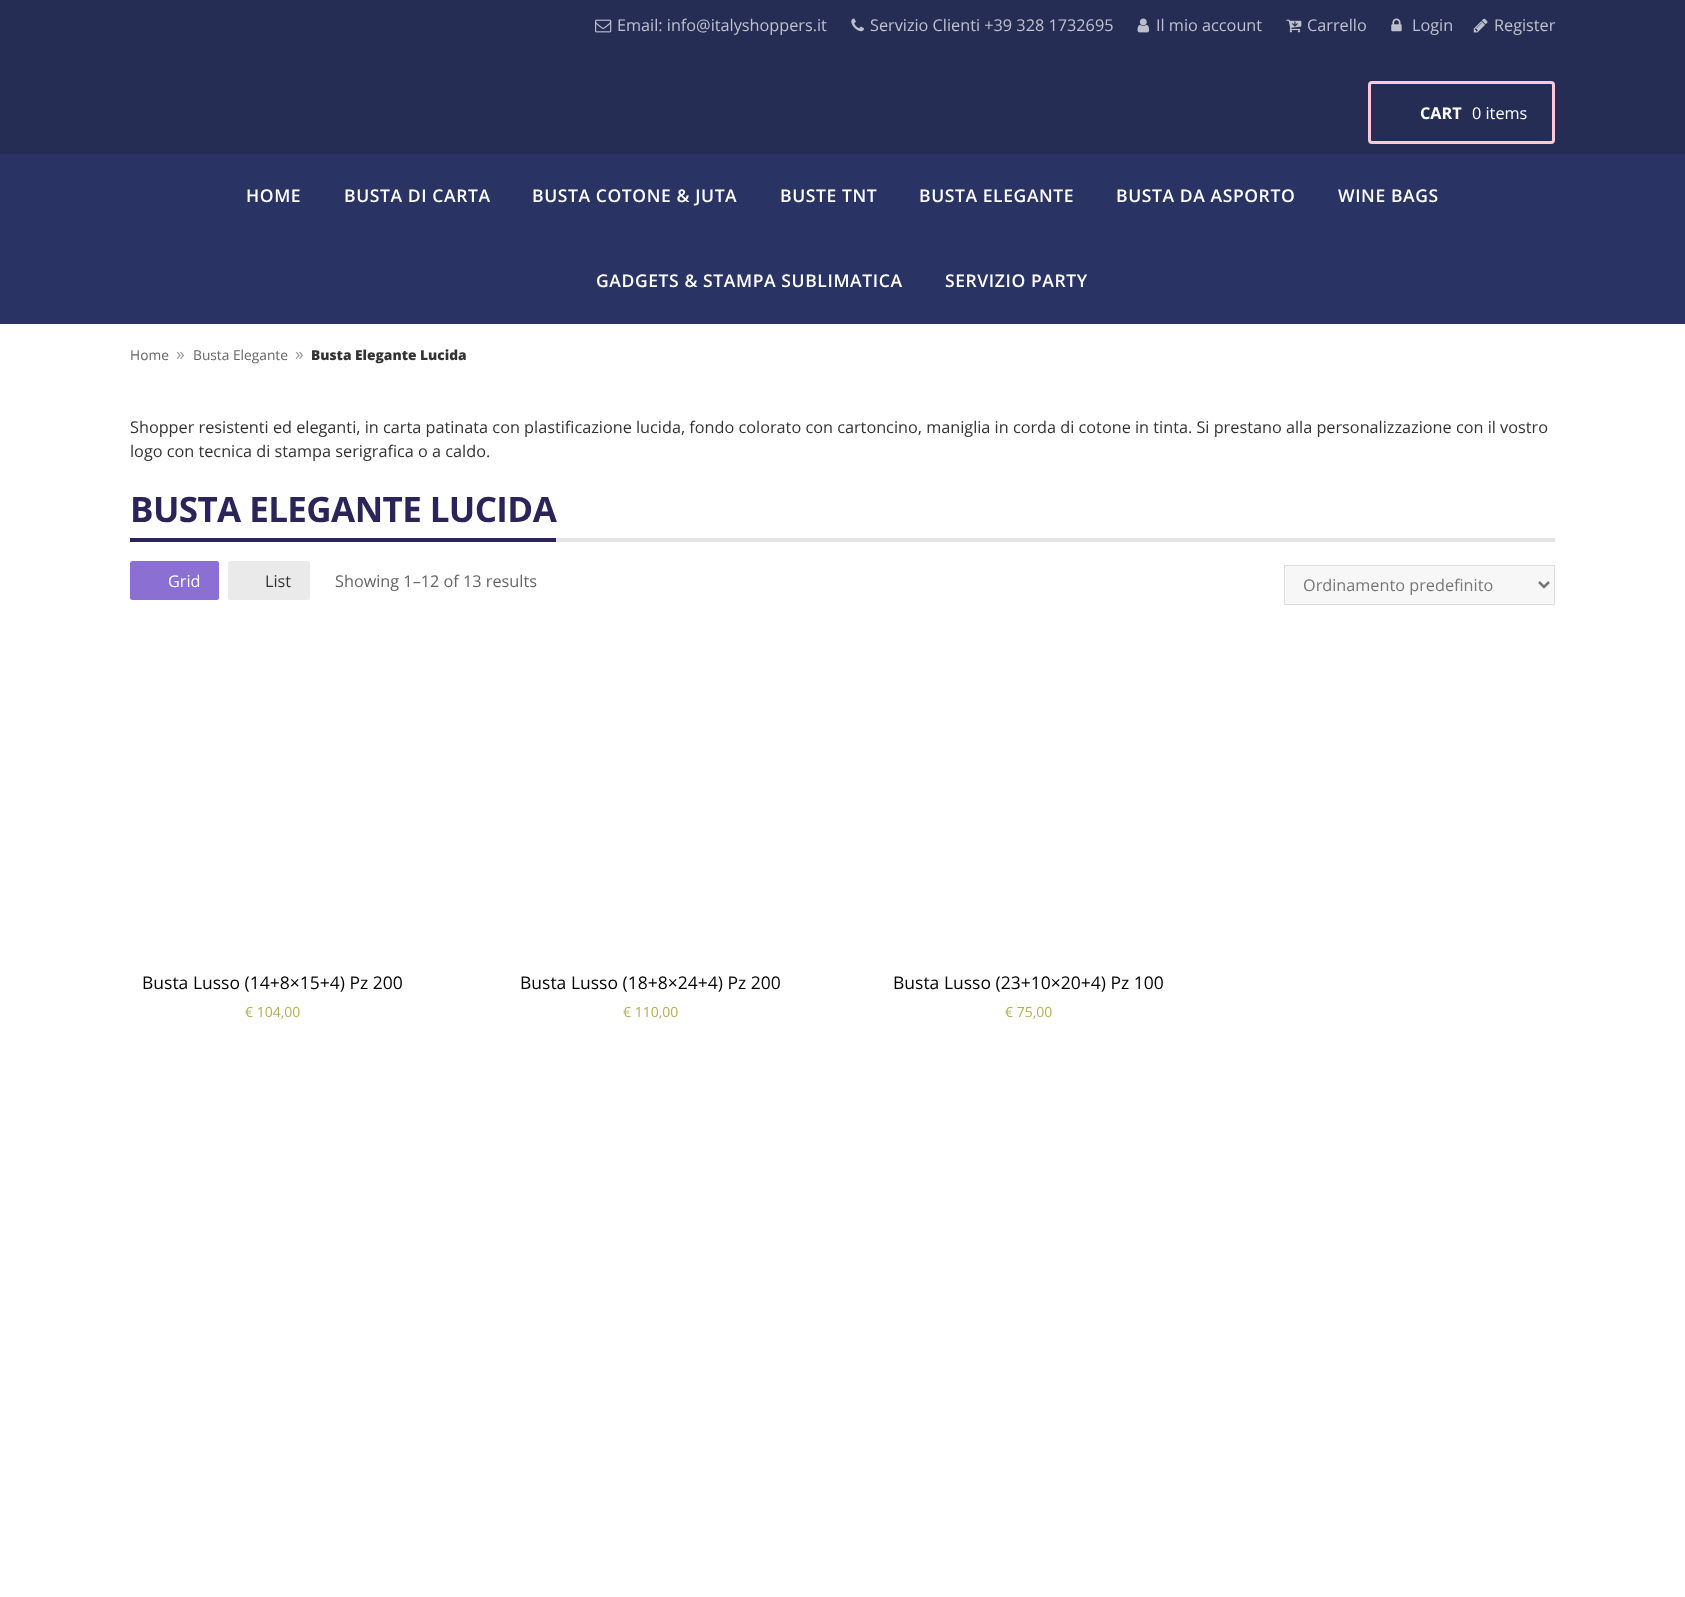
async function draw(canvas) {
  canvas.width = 1685;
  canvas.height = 1597;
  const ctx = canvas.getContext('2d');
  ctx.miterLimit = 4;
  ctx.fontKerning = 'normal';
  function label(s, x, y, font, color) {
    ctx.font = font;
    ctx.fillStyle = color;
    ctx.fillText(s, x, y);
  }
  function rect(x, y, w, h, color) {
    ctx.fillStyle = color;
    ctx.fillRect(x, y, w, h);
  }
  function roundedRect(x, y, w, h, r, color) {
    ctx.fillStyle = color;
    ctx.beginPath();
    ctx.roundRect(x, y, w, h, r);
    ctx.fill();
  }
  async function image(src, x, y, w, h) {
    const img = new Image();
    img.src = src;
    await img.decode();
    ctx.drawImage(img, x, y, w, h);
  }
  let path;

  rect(0, 0, 1685, 1597, '#fff');
  rect(0, 0, 1685, 154, '#262d54');
  await image('assets/img1.png', 595, 19, 17, 14);
  label('Email: info@italyshoppers.it', 617, 31, '16.25px Open Sans', '#bec0cc');
  await image('assets/img2.png', 851, 18, 13, 14);
  label('Servizio Clienti +39 328 1732695', 870, 31, '16.25px Open Sans', '#bec0cc');
  await image('assets/img3.png', 1137, 18, 13, 15);
  label('Il mio account', 1156, 31, '16.25px Open Sans', '#bec0cc');
  await image('assets/img4.png', 1286, 19, 16, 14);
  label('Carrello', 1307, 31, '16.25px Open Sans', '#bec0cc');
  await image('assets/img5.png', 1391, 18, 11, 14);
  label('Login', 1412, 31, '16.25px Open Sans', '#bec0cc');
  await image('assets/img6.png', 1473, 18, 15, 15);
  label('Register', 1494, 31, '16.25px Open Sans', '#bec0cc');
  ctx.beginPath();
  ctx.roundRect(1369.5, 82.5, 184, 60, 2.5);
  ctx.strokeStyle = '#fdc8d8';
  ctx.lineWidth = 3;
  ctx.stroke();
  label('CART', 1420, 119, 'bold 16.25px Open Sans', '#fff');
  label('0 items', 1472, 119, '16.25px Open Sans', '#fff');
  rect(0, 154, 1685, 170, '#293364');
  ctx.letterSpacing = '0.6px';
  label('HOME', 246, 202, '600 17.5px Open Sans', '#fff');
  label('BUSTA DI CARTA', 344, 202, '600 17.5px Open Sans', '#fff');
  label('BUSTA COTONE & JUTA', 532, 202, '600 17.5px Open Sans', '#fff');
  label('BUSTE TNT', 780, 202, '600 17.5px Open Sans', '#fff');
  label('BUSTA ELEGANTE', 919, 202, '600 17.5px Open Sans', '#fff');
  label('BUSTA DA ASPORTO', 1116, 202, '600 17.5px Open Sans', '#fff');
  label('WINE BAGS', 1338, 202, '600 17.5px Open Sans', '#fff');
  label('GADGETS & STAMPA SUBLIMATICA', 596, 287, '600 17.5px Open Sans', '#fff');
  label('SERVIZIO PARTY', 945, 287, '600 17.5px Open Sans', '#fff');
  ctx.letterSpacing = '0px';
  label('Home', 130, 360, '13.75px Open Sans', '#666');
  label('»', 176, 360, '17.5px Open Sans', '#999');
  label('Busta Elegante', 193, 360, '13.75px Open Sans', '#666');
  label('»', 295, 360, '17.5px Open Sans', '#999');
  label('Busta Elegante Lucida', 311, 360, '800 13.75px Open Sans', '#333');
  label('Shopper resistenti ed eleganti, in carta patinata con plastificazione lucida, fondo colorato con cartoncino, maniglia in corda di cotone in tinta. Si prestano alla personalizzazione con il vostro', 130, 433, '16.25px Open Sans', '#333');
  label('logo con tecnica di stampa serigrafica o a caldo.', 130, 457, '16.25px Open Sans', '#333');
  rect(556, 538, 999, 4, '#e5e5e5');
  rect(130, 538, 426, 4, '#2b2459');
  ctx.letterSpacing = '-0.6px';
  label('BUSTA ELEGANTE LUCIDA', 130, 522, 'bold 35px Open Sans', '#2b2459');
  roundedRect(130, 561, 89, 39, 2.5, '#8b6fd2');
  ctx.letterSpacing = '0px';
  label('Grid', 168, 587, '16.25px Open Sans', '#fff');
  roundedRect(228, 561, 82, 39, 2.5, '#eaeaea');
  label('List', 265, 587, '16.25px Open Sans', '#333');
  label('Showing 1–12 of 13 results', 335, 587, '16.25px Open Sans', '#666');
  ctx.fillStyle = '#f7f7f7';
  ctx.beginPath();
  ctx.rect(1284.5, 565.5, 270, 39);
  ctx.fill();
  ctx.strokeStyle = '#ddd';
  ctx.lineWidth = 1;
  ctx.stroke();
  path = new Path2D('M1539 582L1544 587L1549 582');
  ctx.strokeStyle = '#777';
  ctx.lineWidth = 2.5;
  ctx.stroke(path);
  label('Ordinamento predefinito', 1303, 591, '16.25px Open Sans', '#777');
  label('Busta Lusso (14+8×15+4) Pz 200', 142, 989, '17.5px Open Sans', '#000');
  label('€ 104,00', 245, 1017, '14px Open Sans', '#b3af54');
  label('Busta Lusso (18+8×24+4) Pz 200', 520, 989, '17.5px Open Sans', '#000');
  label('€ 110,00', 623, 1017, '14px Open Sans', '#b3af54');
  label('Busta Lusso (23+10×20+4) Pz 100', 893, 989, '17.5px Open Sans', '#000');
  label('€ 75,00', 1005, 1017, '14px Open Sans', '#b3af54');
}

draw(document.querySelector('canvas'));
